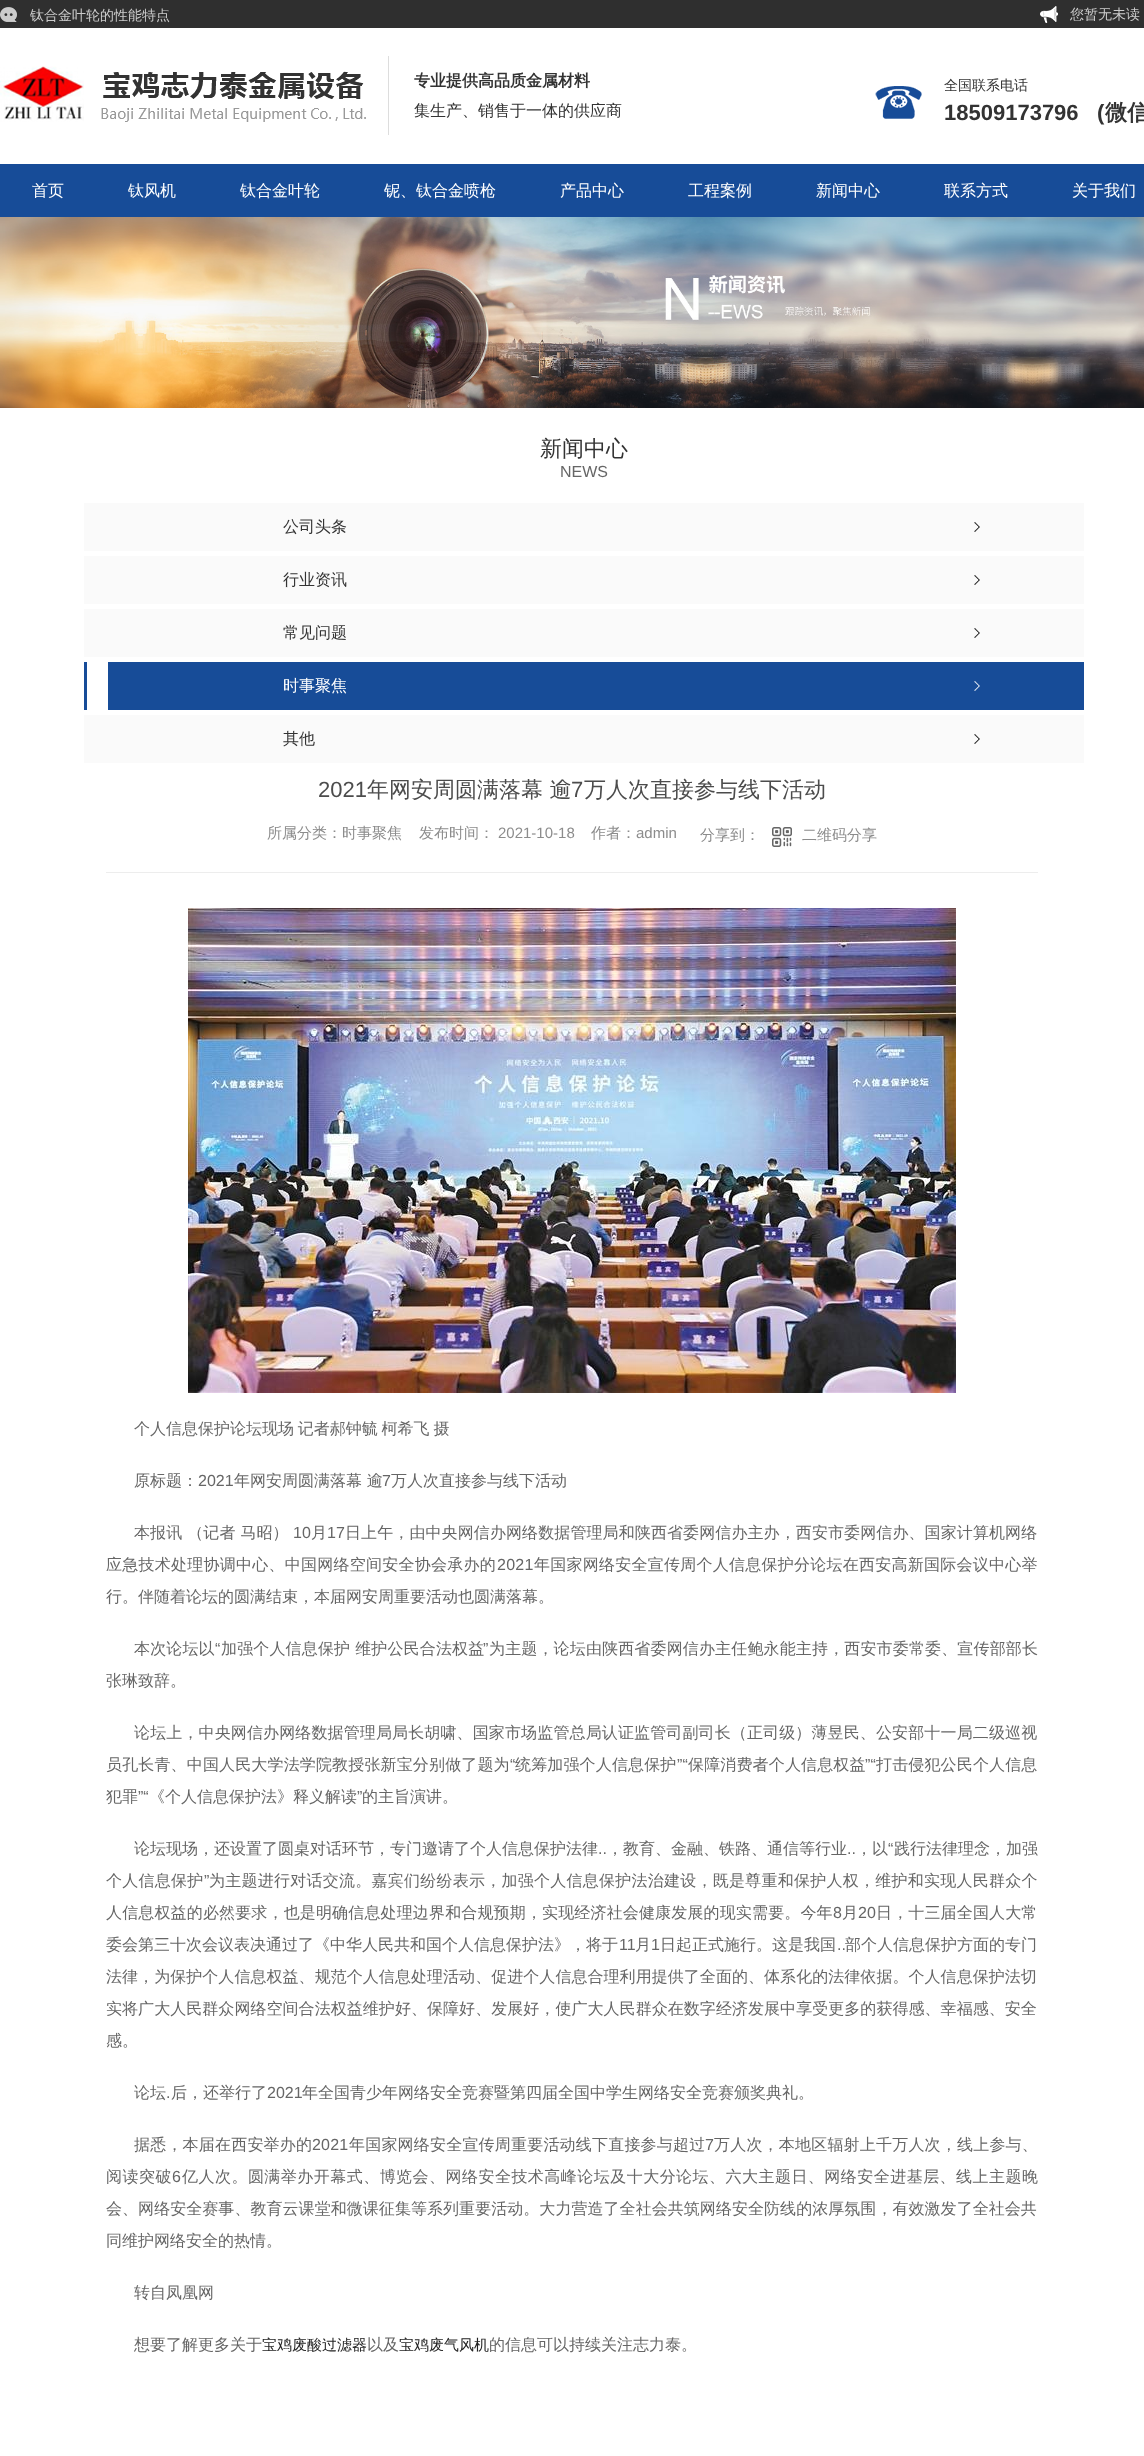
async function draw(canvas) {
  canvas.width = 1144;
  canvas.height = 2456;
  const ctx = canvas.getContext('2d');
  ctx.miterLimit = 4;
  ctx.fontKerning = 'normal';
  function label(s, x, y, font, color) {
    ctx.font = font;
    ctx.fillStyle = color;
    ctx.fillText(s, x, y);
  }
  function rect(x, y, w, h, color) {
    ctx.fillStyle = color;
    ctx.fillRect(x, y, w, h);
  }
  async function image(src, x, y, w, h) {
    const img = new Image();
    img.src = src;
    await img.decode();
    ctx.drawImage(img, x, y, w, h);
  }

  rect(0, 0, 1144, 2456, '#fff');
  rect(0, 0, 1144, 28, '#2f2f2f');
  await image('assets/img1.png', 0, 7, 17, 15);
  label('钛合金叶轮的性能特点', 30, 20, '500 14px WenQuanYi Zen Hei', '#ccc');
  await image('assets/img2.png', 1040, 6, 18, 17);
  label('您暂无未读', 1070, 19, '500 14px WenQuanYi Zen Hei', '#ccc');
  await image('assets/img3.png', 0, 66, 366, 56);
  rect(388, 56, 1, 79, '#ddd');
  label('专业提供高品质金属材料', 414, 86, 'bold 16px WenQuanYi Zen Hei', '#333');
  label('集生产、销售于一体的供应商', 414, 116, '500 16px WenQuanYi Zen Hei', '#333');
  await image('assets/img4.png', 875, 86, 47, 33);
  label('全国联系电话', 944, 90, '500 14px WenQuanYi Zen Hei', '#333');
  label('18509173796   (', 944, 120, 'bold 22px Liberation Sans', '#333');
  label('微信', 1105, 120, 'bold 22px WenQuanYi Zen Hei', '#333');
  rect(0, 164, 1144, 53, '#174c98');
  label('首页', 32, 196, '500 16px WenQuanYi Zen Hei', '#fff');
  label('钛风机', 128, 196, '500 16px WenQuanYi Zen Hei', '#fff');
  label('钛合金叶轮', 240, 196, '500 16px WenQuanYi Zen Hei', '#fff');
  label('铌、钛合金喷枪', 384, 196, '500 16px WenQuanYi Zen Hei', '#fff');
  label('产品中心', 560, 196, '500 16px WenQuanYi Zen Hei', '#fff');
  label('工程案例', 688, 196, '500 16px WenQuanYi Zen Hei', '#fff');
  label('新闻中心', 816, 196, '500 16px WenQuanYi Zen Hei', '#fff');
  label('联系方式', 944, 196, '500 16px WenQuanYi Zen Hei', '#fff');
  label('关于我们', 1072, 196, '500 16px WenQuanYi Zen Hei', '#fff');
  await image('assets/img5.png', 0, 217, 1144, 191);
  label('新闻中心', 540, 456, '500 22px WenQuanYi Zen Hei', '#333');
  label('NEWS', 560, 477, '16px Liberation Sans', '#666');
  rect(84, 503, 1000, 48, '#fafafa');
  await image('assets/img6.png', 974, 522, 6, 10);
  label('公司头条', 283, 532, '500 16px WenQuanYi Zen Hei', '#333');
  rect(84, 556, 1000, 48, '#fafafa');
  await image('assets/img6.png', 974, 575, 6, 10);
  label('行业资讯', 283, 585, '500 16px WenQuanYi Zen Hei', '#333');
  rect(84, 609, 1000, 48, '#fafafa');
  await image('assets/img6.png', 974, 628, 6, 10);
  label('常见问题', 283, 638, '500 16px WenQuanYi Zen Hei', '#333');
  rect(84, 662, 1000, 48, '#174c98');
  rect(87, 662, 21, 48, '#fff');
  await image('assets/img7.png', 974, 681, 6, 10);
  label('时事聚焦', 283, 691, '500 16px WenQuanYi Zen Hei', '#fff');
  rect(84, 715, 1000, 48, '#fafafa');
  await image('assets/img6.png', 974, 734, 6, 10);
  label('其他', 283, 744, '500 16px WenQuanYi Zen Hei', '#333');
  label('2021', 318, 797, '22px Liberation Sans', '#4c4c4c');
  label('年网安周圆满落幕 逾', 367, 797, '500 22px WenQuanYi Zen Hei', '#4c4c4c');
  label('7', 571, 797, '22px Liberation Sans', '#4c4c4c');
  label('万人次直接参与线下活动', 584, 797, '500 22px WenQuanYi Zen Hei', '#4c4c4c');
  label('所属分类：时事聚焦', 267, 838, '500 15px WenQuanYi Zen Hei', '#8c8c8c');
  label('发布时间：', 419, 838, '500 15px WenQuanYi Zen Hei', '#8c8c8c');
  label('2021-10-18', 498, 838, '15px Liberation Sans', '#8c8c8c');
  label('作者：', 591, 838, '500 15px WenQuanYi Zen Hei', '#8c8c8c');
  label('admin', 636, 838, '15px Liberation Sans', '#8c8c8c');
  label('分享到：', 700, 840, '500 15px WenQuanYi Zen Hei', '#8c8c8c');
  await image('assets/img8.png', 772, 827, 20, 20);
  label('二维码分享', 802, 840, '500 15px WenQuanYi Zen Hei', '#8c8c8c');
  rect(106, 872, 932, 1, '#ededed');
  await image('assets/img9.png', 188, 908, 768, 485);
  ctx.wordSpacing = '-1px';
  label('个人信息保护论坛现场 记者郝钟毓 柯希飞 摄', 134, 1434, '500 16px WenQuanYi Zen Hei', '#666');
  ctx.wordSpacing = '0px';
  label('原标题：', 134, 1486, '500 16px WenQuanYi Zen Hei', '#666');
  label('2021', 198, 1486, '16px Liberation Sans', '#666');
  label('年网安周圆满落幕 逾', 234, 1486, '500 16px WenQuanYi Zen Hei', '#666');
  label('7', 382, 1486, '16px Liberation Sans', '#666');
  label('万人次直接参与线下活动', 391, 1486, '500 16px WenQuanYi Zen Hei', '#666');
  ctx.letterSpacing = '0.1px';
  label('本报讯 （记者 马昭）', 134, 1538, '500 16px WenQuanYi Zen Hei', '#666');
  label('10', 293, 1538, '16px Liberation Sans', '#666');
  label('月', 311, 1538, '500 16px WenQuanYi Zen Hei', '#666');
  label('17', 327, 1538, '16px Liberation Sans', '#666');
  label('日上午，由中央网信办网络数据管理局和陕西省委网信办主办，西安市委网信办、国家计算机网络', 345, 1538, '500 16px WenQuanYi Zen Hei', '#666');
  ctx.letterSpacing = '0.25px';
  label('应急技术处理协调中心、中国网络空间安全协会承办的', 106, 1570, '500 16px WenQuanYi Zen Hei', '#666');
  label('2021', 497, 1570, '16px Liberation Sans', '#666');
  label('年国家网络安全宣传周个人信息保护分论坛在西安高新国际会议中心举', 534, 1570, '500 16px WenQuanYi Zen Hei', '#666');
  ctx.letterSpacing = '0px';
  label('行。伴随着论坛的圆满结束，本届网安周重要活动也圆满落幕。', 106, 1602, '500 16px WenQuanYi Zen Hei', '#666');
  ctx.letterSpacing = '0.15px';
  label('本次论坛以', 134, 1654, '500 16px WenQuanYi Zen Hei', '#666');
  label('“', 215, 1654, '16px Liberation Sans', '#666');
  label('加强个人信息保护 维护公民合法权益', 221, 1654, '500 16px WenQuanYi Zen Hei', '#666');
  label('”', 483, 1654, '16px Liberation Sans', '#666');
  label('为主题，论坛由陕西省委网信办主任鲍永能主持，西安市委常委、宣传部部长', 489, 1654, '500 16px WenQuanYi Zen Hei', '#666');
  ctx.letterSpacing = '0px';
  label('张琳致辞。', 106, 1686, '500 16px WenQuanYi Zen Hei', '#666');
  ctx.letterSpacing = '0.13px';
  label('论坛上，中央网信办网络数据管理局局长胡啸、国家市场监管总局认证监管司副司长（正司级）薄昱民、公安部十一局二级巡视', 134, 1738, '500 16px WenQuanYi Zen Hei', '#666');
  ctx.letterSpacing = '0.15px';
  label('员孔长青、中国人民大学法学院教授张新宝分别做了题为', 106, 1770, '500 16px WenQuanYi Zen Hei', '#666');
  label('“', 510, 1770, '16px Liberation Sans', '#666');
  label('统筹加强个人信息保护', 515, 1770, '500 16px WenQuanYi Zen Hei', '#666');
  label('”“', 677, 1770, '16px Liberation Sans', '#666');
  label('保障消费者个人信息权益', 688, 1770, '500 16px WenQuanYi Zen Hei', '#666');
  label('”“', 865, 1770, '16px Liberation Sans', '#666');
  label('打击侵犯公民个人信息', 876, 1770, '500 16px WenQuanYi Zen Hei', '#666');
  ctx.letterSpacing = '0px';
  label('犯罪', 106, 1802, '500 16px WenQuanYi Zen Hei', '#666');
  label('”“', 138, 1802, '16px Liberation Sans', '#666');
  label('《个人信息保护法》释义解读', 149, 1802, '500 16px WenQuanYi Zen Hei', '#666');
  label('”', 357, 1802, '16px Liberation Sans', '#666');
  label('的主旨演讲。', 362, 1802, '500 16px WenQuanYi Zen Hei', '#666');
  label('论坛现场，还设置了圆桌对话环节，专门邀请了个人信息保护法律', 134, 1854, '500 16px WenQuanYi Zen Hei', '#666');
  label('，教育、金融、铁路、通信等行业', 607, 1854, '500 16px WenQuanYi Zen Hei', '#666');
  label('，以', 856, 1854, '500 16px WenQuanYi Zen Hei', '#666');
  label('“', 888, 1854, '16px Liberation Sans', '#666');
  label('践行法律理念，加强', 894, 1854, '500 16px WenQuanYi Zen Hei', '#666');
  label('..', 598, 1854, '16px Liberation Sans', '#666');
  label('..', 847, 1854, '16px Liberation Sans', '#666');
  ctx.letterSpacing = '0.25px';
  label('个人信息保护', 106, 1886, '500 16px WenQuanYi Zen Hei', '#666');
  label('”', 204, 1886, '16px Liberation Sans', '#666');
  label('为主题进行对话交流。嘉宾们纷纷表示，加强个人信息保护法治建设，既是尊重和保护人权，维护和实现人民群众个', 209, 1886, '500 16px WenQuanYi Zen Hei', '#666');
  ctx.letterSpacing = '0.15px';
  label('人信息权益的必然要求，也是明确信息处理边界和合规预期，实现经济社会健康发展的现实需要。今年', 106, 1918, '500 16px WenQuanYi Zen Hei', '#666');
  label('8', 833, 1918, '16px Liberation Sans', '#666');
  label('月', 842, 1918, '500 16px WenQuanYi Zen Hei', '#666');
  label('20', 858, 1918, '16px Liberation Sans', '#666');
  label('日，十三届全国人大常', 876, 1918, '500 16px WenQuanYi Zen Hei', '#666');
  ctx.letterSpacing = '0px';
  label('委会第三十次会议表决通过了《中华人民共和国个人信息保护法》，将于', 106, 1950, '500 16px WenQuanYi Zen Hei', '#666');
  label('11', 619, 1950, '16px Liberation Sans', '#666');
  label('月', 635, 1950, '500 16px WenQuanYi Zen Hei', '#666');
  label('1', 651, 1950, '16px Liberation Sans', '#666');
  label('日起正式施行。这是我国', 660, 1950, '500 16px WenQuanYi Zen Hei', '#666');
  label('..', 837, 1950, '16px Liberation Sans', '#666');
  label('部个人信息保护方面的专门', 845, 1950, '500 16px WenQuanYi Zen Hei', '#666');
  ctx.letterSpacing = '0.05px';
  label('法律，为保护个人信息权益、规范个人信息处理活动、促进个人信息合理利用提供了全面的、体系化的法律依据。个人信息保护法切', 106, 1982, '500 16px WenQuanYi Zen Hei', '#666');
  label('实将广大人民群众网络空间合法权益维护好、保障好、发展好，使广大人民群众在数字经济发展中享受更多的获得感、幸福感、安全', 106, 2014, '500 16px WenQuanYi Zen Hei', '#666');
  ctx.letterSpacing = '0px';
  label('感。', 106, 2046, '500 16px WenQuanYi Zen Hei', '#666');
  label('论坛', 134, 2098, '500 16px WenQuanYi Zen Hei', '#666');
  label('.', 166, 2098, '16px Liberation Sans', '#666');
  label('后，还举行了', 171, 2098, '500 16px WenQuanYi Zen Hei', '#666');
  label('2021', 267, 2098, '16px Liberation Sans', '#666');
  label('年全国青少年网络安全竞赛暨第四届全国中学生网络安全竞赛颁奖典礼。', 302, 2098, '500 16px WenQuanYi Zen Hei', '#666');
  ctx.letterSpacing = '0.2px';
  label('据悉，本届在西安举办的', 134, 2150, '500 16px WenQuanYi Zen Hei', '#666');
  label('2021', 312, 2150, '16px Liberation Sans', '#666');
  label('年国家网络安全宣传周重要活动线下直接参与超过', 349, 2150, '500 16px WenQuanYi Zen Hei', '#666');
  label('7', 705, 2150, '16px Liberation Sans', '#666');
  label('万人次，本地区辐射上千万人次，线上参与、', 714, 2150, '500 16px WenQuanYi Zen Hei', '#666');
  ctx.letterSpacing = '0.47px';
  label('阅读突破', 106, 2182, '500 16px WenQuanYi Zen Hei', '#666');
  label('6', 172, 2182, '16px Liberation Sans', '#666');
  label('亿人次。圆满举办开幕式、博览会、网络安全技术高峰论坛及十大分论坛、六大主题日、网络安全进基层、线上主题晚', 182, 2182, '500 16px WenQuanYi Zen Hei', '#666');
  ctx.letterSpacing = '0.05px';
  label('会、网络安全赛事、教育云课堂和微课征集等系列重要活动。大力营造了全社会共筑网络安全防线的浓厚氛围，有效激发了全社会共', 106, 2214, '500 16px WenQuanYi Zen Hei', '#666');
  ctx.letterSpacing = '0px';
  label('同维护网络安全的热情。', 106, 2246, '500 16px WenQuanYi Zen Hei', '#666');
  label('转自凤凰网', 134, 2298, '500 16px WenQuanYi Zen Hei', '#666');
  label('想要了解更多关于', 134, 2350, '500 16px WenQuanYi Zen Hei', '#666');
  label('宝鸡废酸过滤器', 262, 2350, '500 15px WenQuanYi Zen Hei', '#222');
  label('以及', 367, 2350, '500 16px WenQuanYi Zen Hei', '#666');
  label('宝鸡废气风机', 399, 2350, '500 15px WenQuanYi Zen Hei', '#222');
  label('的信息可以持续关注志力泰。', 489, 2350, '500 16px WenQuanYi Zen Hei', '#666');
}

draw(document.querySelector('canvas'));
